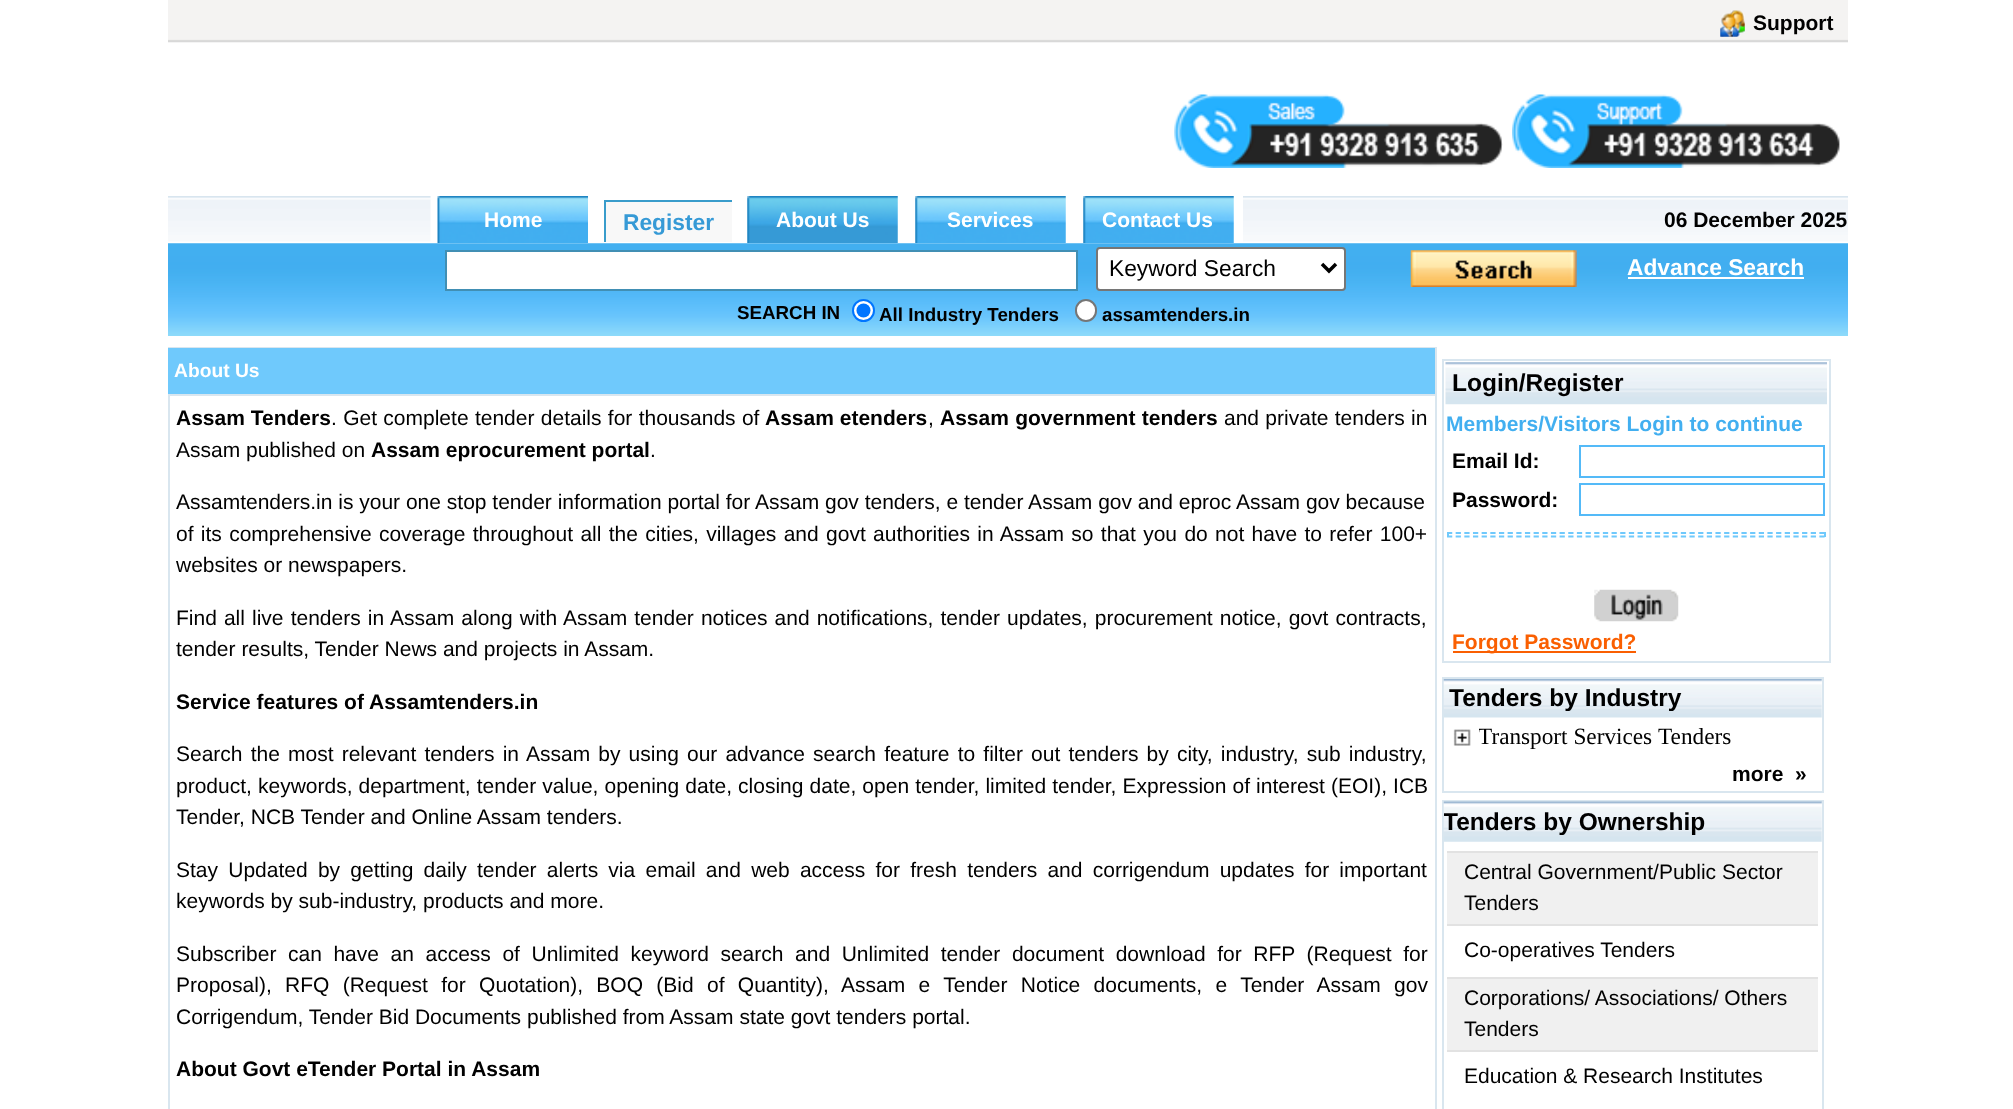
async function draw(canvas) {
  canvas.width = 2013;
  canvas.height = 1109;
  const ctx = canvas.getContext('2d');
  ctx.miterLimit = 4;
  ctx.fontKerning = 'normal';
  function label(s, x, y, font, color) {
    ctx.font = font;
    ctx.fillStyle = color;
    ctx.fillText(s, x, y);
  }
  function rect(x, y, w, h, color) {
    ctx.fillStyle = color;
    ctx.fillRect(x, y, w, h);
  }
  async function image(src, x, y, w, h) {
    const img = new Image();
    img.src = src;
    await img.decode();
    ctx.drawImage(img, x, y, w, h);
  }
  let path;

  rect(0, 0, 2013, 1109, '#fff');
  await image('assets/img1.png', 168, 0, 1680, 43);
  await image('assets/img2.png', 1720, 10, 25, 27);
  label('Support', 1753, 30, 'bold 21px Liberation Sans', '#000');
  await image('assets/img3.png', 1174, 94, 329, 74);
  await image('assets/img4.png', 1512, 94, 328, 74);
  await image('assets/img5.png', 168, 196, 263, 46);
  await image('assets/img6.png', 437, 196, 151, 48);
  label('Home', 484, 227, 'bold 21px Liberation Sans', '#fff');
  rect(606, 202, 126, 40, '#f8f8f8');
  rect(604, 200, 128, 2, '#399ccb');
  rect(604, 200, 2, 42, '#399ccb');
  label('Register', 623, 230, 'bold 22.75px Liberation Sans', '#369ad6');
  await image('assets/img7.png', 747, 196, 151, 48);
  label('About Us', 776, 227, 'bold 21px Liberation Sans', '#fff');
  await image('assets/img8.png', 915, 196, 151, 48);
  label('Services', 947, 227, 'bold 21px Liberation Sans', '#fff');
  await image('assets/img8.png', 1083, 196, 151, 48);
  label('Contact Us', 1102, 227, 'bold 21px Liberation Sans', '#fff');
  await image('assets/img9.png', 1243, 196, 605, 46);
  label('06 December 2025', 1664, 227, 'bold 21px Liberation Sans', '#000');
  await image('assets/img10.png', 168, 243, 1680, 93);
  ctx.fillStyle = '#fff';
  ctx.beginPath();
  ctx.rect(446, 251, 631, 39);
  ctx.fill();
  ctx.strokeStyle = '#418fb4';
  ctx.lineWidth = 2;
  ctx.stroke();
  ctx.beginPath();
  ctx.roundRect(1097, 248, 248, 42, 3);
  ctx.fill();
  ctx.strokeStyle = '#767676';
  ctx.stroke();
  path = new Path2D('M1322 264L1329 271L1336 264');
  ctx.strokeStyle = '#000';
  ctx.lineWidth = 3.5;
  ctx.stroke(path);
  label('Keyword Search', 1109, 276, '22.75px Liberation Sans', '#000');
  await image('assets/img11.png', 1410, 250, 167, 37);
  label('Advance Search', 1627, 275, 'bold 22.75px Liberation Sans', '#fff');
  rect(1628, 277, 176, 2, '#fff');
  label('SEARCH IN', 737, 319, 'bold 18.75px Liberation Sans', '#000');
  ctx.fillStyle = '#fff';
  ctx.beginPath();
  ctx.arc(863.5, 310.5, 10.5, 0, 2 * Math.PI);
  ctx.fill();
  ctx.strokeStyle = '#0075ff';
  ctx.lineWidth = 2;
  ctx.stroke();
  ctx.fillStyle = '#0075ff';
  ctx.beginPath();
  ctx.arc(863.5, 310.5, 7, 0, 2 * Math.PI);
  ctx.fill();
  label('All Industry Tenders', 879, 321, 'bold 18.75px Liberation Sans', '#000');
  ctx.fillStyle = '#fff';
  ctx.beginPath();
  ctx.roundRect(1076, 300, 20, 21, 10);
  ctx.fill();
  ctx.strokeStyle = '#767676';
  ctx.stroke();
  label('assamtenders.in', 1102, 321, 'bold 18.75px Liberation Sans', '#000');
  rect(168, 347, 1269, 1, '#d9e6ef');
  rect(1435, 347, 2, 47, '#d9e6ef');
  rect(168, 348, 1267, 46, '#6fc9fc');
  label('About Us', 174, 377, 'bold 19.25px Liberation Sans', '#fff');
  ctx.strokeStyle = '#d9e6ef';
  ctx.strokeRect(169, 395, 1267, 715);
  label('Assam Tenders', 176, 425, 'bold 21px Liberation Sans', '#000');
  ctx.wordSpacing = '0.5px';
  label('. Get complete tender details for thousands of', 331, 425, '21px Liberation Sans', '#000');
  ctx.wordSpacing = '0px';
  label('Assam etenders', 765, 425, 'bold 21px Liberation Sans', '#000');
  label(',', 928, 425, '21px Liberation Sans', '#000');
  ctx.wordSpacing = '0.5px';
  label('Assam government tenders', 940, 425, 'bold 21px Liberation Sans', '#000');
  label('and private tenders in', 1224, 425, '21px Liberation Sans', '#000');
  ctx.wordSpacing = '0px';
  label('Assam published on', 176, 457, '21px Liberation Sans', '#000');
  label('Assam eprocurement portal', 371, 457, 'bold 21px Liberation Sans', '#000');
  label('.', 650, 457, '21px Liberation Sans', '#000');
  label('Assamtenders.in is your one stop tender information portal for Assam gov tenders, e tender Assam gov and eproc Assam gov because', 176, 509, '21px Liberation Sans', '#000');
  ctx.wordSpacing = '1.5px';
  label('of its comprehensive coverage throughout all the cities, villages and govt authorities in Assam so that you do not have to refer 100+', 176, 541, '21px Liberation Sans', '#000');
  ctx.wordSpacing = '0px';
  label('websites or newspapers.', 176, 572, '21px Liberation Sans', '#000');
  ctx.wordSpacing = '1.25px';
  label('Find all live tenders in Assam along with Assam tender notices and notifications, tender updates, procurement notice, govt contracts,', 176, 625, '21px Liberation Sans', '#000');
  ctx.wordSpacing = '0px';
  label('tender results, Tender News and projects in Assam.', 176, 656, '21px Liberation Sans', '#000');
  label('Service features of Assamtenders.in', 176, 709, 'bold 21px Liberation Sans', '#000');
  ctx.wordSpacing = '2.3px';
  label('Search the most relevant tenders in Assam by using our advance search feature to filter out tenders by city, industry, sub industry,', 176, 761, '21px Liberation Sans', '#000');
  ctx.wordSpacing = '0.25px';
  label('product, keywords, department, tender value, opening date, closing date, open tender, limited tender, Expression of interest (EOI), ICB', 176, 793, '21px Liberation Sans', '#000');
  ctx.wordSpacing = '0px';
  label('Tender, NCB Tender and Online Assam tenders.', 176, 824, '21px Liberation Sans', '#000');
  ctx.wordSpacing = '4.4px';
  label('Stay Updated by getting daily tender alerts via email and web access for fresh tenders and corrigendum updates for important', 176, 877, '21px Liberation Sans', '#000');
  ctx.wordSpacing = '0px';
  label('keywords by sub-industry, products and more.', 176, 908, '21px Liberation Sans', '#000');
  ctx.wordSpacing = '5.75px';
  label('Subscriber can have an access of Unlimited keyword search and Unlimited tender document download for RFP (Request for', 176, 961, '21px Liberation Sans', '#000');
  ctx.wordSpacing = '7.5px';
  label('Proposal), RFQ (Request for Quotation), BOQ (Bid of Quantity), Assam e Tender Notice documents, e Tender Assam gov', 176, 992, '21px Liberation Sans', '#000');
  ctx.wordSpacing = '0px';
  label('Corrigendum, Tender Bid Documents published from Assam state govt tenders portal.', 176, 1024, '21px Liberation Sans', '#000');
  label('About Govt eTender Portal in Assam', 176, 1076, 'bold 21px Liberation Sans', '#000');
  ctx.strokeRect(1443, 360, 387, 302);
  await image('assets/img12.png', 1445, 362, 382, 43);
  label('Login/Register', 1452, 391, 'bold 24.5px Liberation Sans', '#000');
  label('Members/Visitors Login to continue', 1446, 431, 'bold 21px Liberation Sans', '#42aff0');
  label('Email Id:', 1452, 468, 'bold 21px Liberation Sans', '#000');
  ctx.strokeStyle = '#54baf8';
  ctx.strokeRect(1580, 446, 244, 31);
  label('Password:', 1452, 507, 'bold 21px Liberation Sans', '#000');
  ctx.strokeRect(1580, 484, 244, 31);
  path = new Path2D('M1447 533H1825');
  ctx.strokeStyle = '#6fc9fc';
  ctx.lineWidth = 1.8;
  ctx.setLineDash([5.25, 3.41]);
  ctx.stroke(path);
  rect(1824, 532, 2, 5, '#6fc9fc');
  path = new Path2D('M1447 536.5H1825');
  ctx.stroke(path);
  rect(1447, 532, 2, 5, '#6fc9fc');
  await image('assets/img13.png', 1594, 589, 85, 33);
  rect(1453, 651, 183, 2, '#fa5f01');
  label('Forgot Password?', 1452, 649, 'bold 21px Liberation Sans', '#fa5f01');
  ctx.strokeStyle = '#d9e6ef';
  ctx.lineWidth = 2;
  ctx.setLineDash([]);
  ctx.strokeRect(1443, 678, 380, 114);
  await image('assets/img14.png', 1443, 679, 379, 39);
  label('Tenders by Industry', 1449, 706, 'bold 24.5px Liberation Sans', '#000');
  await image('assets/img15.png', 1453, 729, 18, 17);
  ctx.save();
  ctx.beginPath();
  ctx.rect(1479, 719, 252, 35);
  ctx.clip();
  label('Transport Services', 1478, 744, '23.25px Liberation Serif', '#000');
  ctx.restore();
  label('Tenders', 1658, 744, '23.25px Liberation Serif', '#000');
  label('more', 1732, 781, 'bold 21px Liberation Sans', '#000');
  label('»', 1795, 781, 'bold 21px Liberation Sans', '#000');
  ctx.strokeRect(1443, 801, 380, 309);
  await image('assets/img16.png', 1443, 801, 379, 41);
  ctx.save();
  ctx.beginPath();
  ctx.rect(1444, 802, 378, 40);
  ctx.clip();
  label('Tenders by Ownership', 1443, 830, 'bold 24.5px Liberation Sans', '#000');
  ctx.restore();
  rect(1447, 853, 371, 71, '#f0f0f0');
  rect(1447, 851, 371, 2, '#e2e2e2');
  rect(1447, 924, 371, 2, '#e2e2e2');
  label('Central Government/Public Sector', 1464, 879, '21px Liberation Sans', '#000');
  label('Tenders', 1464, 910, '21px Liberation Sans', '#000');
  label('Co-operatives Tenders', 1464, 957, '21px Liberation Sans', '#000');
  rect(1447, 979, 371, 71, '#f0f0f0');
  rect(1447, 977, 371, 2, '#e2e2e2');
  rect(1447, 1050, 371, 2, '#e2e2e2');
  label('Corporations/ Associations/ Others', 1464, 1005, '21px Liberation Sans', '#000');
  label('Tenders', 1464, 1036, '21px Liberation Sans', '#000');
  label('Education & Research Institutes', 1464, 1083, '21px Liberation Sans', '#000');
}

draw(document.querySelector('canvas'));
